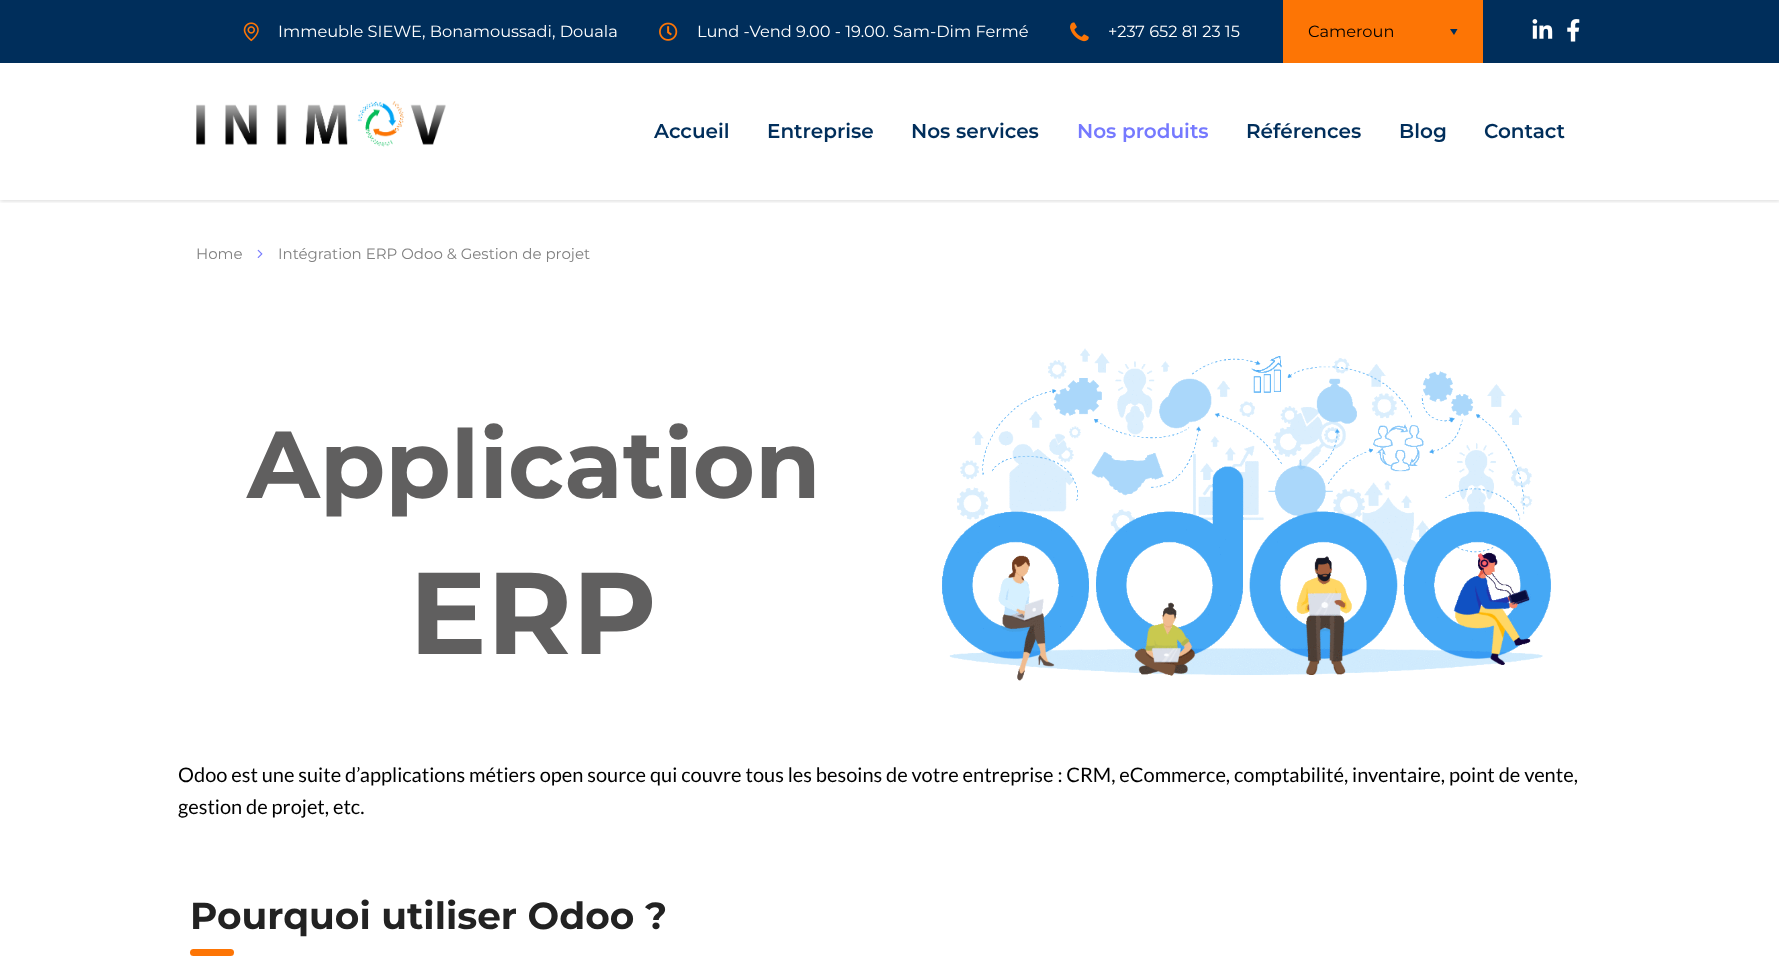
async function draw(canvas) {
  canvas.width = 1779;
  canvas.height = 967;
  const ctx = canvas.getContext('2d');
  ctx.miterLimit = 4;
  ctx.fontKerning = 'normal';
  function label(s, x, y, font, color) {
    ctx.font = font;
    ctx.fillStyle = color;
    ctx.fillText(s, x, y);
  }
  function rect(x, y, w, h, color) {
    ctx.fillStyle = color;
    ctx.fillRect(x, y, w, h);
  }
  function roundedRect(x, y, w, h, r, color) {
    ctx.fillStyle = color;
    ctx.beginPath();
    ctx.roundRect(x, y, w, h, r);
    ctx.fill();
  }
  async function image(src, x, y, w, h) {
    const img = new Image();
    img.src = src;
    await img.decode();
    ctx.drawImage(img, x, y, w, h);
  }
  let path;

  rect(0, 0, 1779, 967, '#fff');
  ctx.save();
  ctx.beginPath();
  ctx.rect(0, 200, 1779, 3);
  ctx.clip();
  ctx.fillStyle = '#00000026';
  ctx.filter = 'blur(2px)';
  ctx.beginPath();
  ctx.rect(0, 64, 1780, 137);
  ctx.fill();
  ctx.filter = 'none';
  ctx.restore();
  rect(0, 0, 1779, 63, '#002e5b');
  await image('assets/img1.png', 243, 22, 16, 20);
  label('Immeuble SIEWE, Bonamoussadi, Douala', 278, 37, '16.25px Montserrat', '#fff');
  await image('assets/img2.png', 659, 22, 19, 19);
  label('Lund -Vend 9.00 - 19.00. Sam-Dim Fermé', 697, 37, '16.25px Montserrat', '#fff');
  await image('assets/img3.png', 1070, 22, 19, 20);
  label('+237 652 81 23 15', 1108, 37, '16.25px Montserrat', '#fff');
  rect(1283, 0, 200, 63, '#fd7505');
  label('Cameroun', 1308, 37, '16.25px Montserrat', '#000');
  ctx.fillStyle = '#002e5b';
  path = new Path2D('M1450 29H1457.5L1454 35Z');
  ctx.fill(path);
  await image('assets/img4.png', 1532, 19, 21, 20);
  await image('assets/img5.png', 1567, 19, 13, 23);
  await image('assets/img6.png', 196, 101, 250, 46);
  label('Accueil', 654, 138, '600 20px Montserrat', '#002e5b');
  label('Entreprise', 767, 138, '600 20px Montserrat', '#002e5b');
  label('Nos services', 911, 138, '600 20px Montserrat', '#002e5b');
  label('Nos produits', 1077, 138, '600 20px Montserrat', '#7579ff');
  label('Références', 1246, 138, '600 20px Montserrat', '#002e5b');
  label('Blog', 1399, 138, '600 20px Montserrat', '#002e5b');
  label('Contact', 1484, 138, '600 20px Montserrat', '#002e5b');
  label('Home', 196, 259, '15px Montserrat', '#808080');
  await image('assets/img7.png', 257, 249, 6, 9);
  label('Intégration ERP Odoo & Gestion de projet', 278, 259, '15px Montserrat', '#808080');
  label('Application', 247, 498, 'bold 95px Montserrat', '#605f5f');
  label('ERP', 409, 654, 'bold 116px Montserrat', '#605f5f');
  await image('assets/img8.png', 942, 348, 609, 333);
  label('Odoo est une suite d’applications métiers open source qui couvre tous les besoins de votre entreprise : CRM, eCommerce, comptabilité, inventaire, point de vente,', 178, 782, '20px Lato', '#000');
  label('gestion de projet, etc.', 178, 814, '20px Lato', '#000');
  label('Pourquoi utiliser Odoo ?', 190, 929, 'bold 37.5px Montserrat', '#222');
  roundedRect(190, 949, 44, 7, 3.5, '#fd7505');
}

draw(document.querySelector('canvas'));
